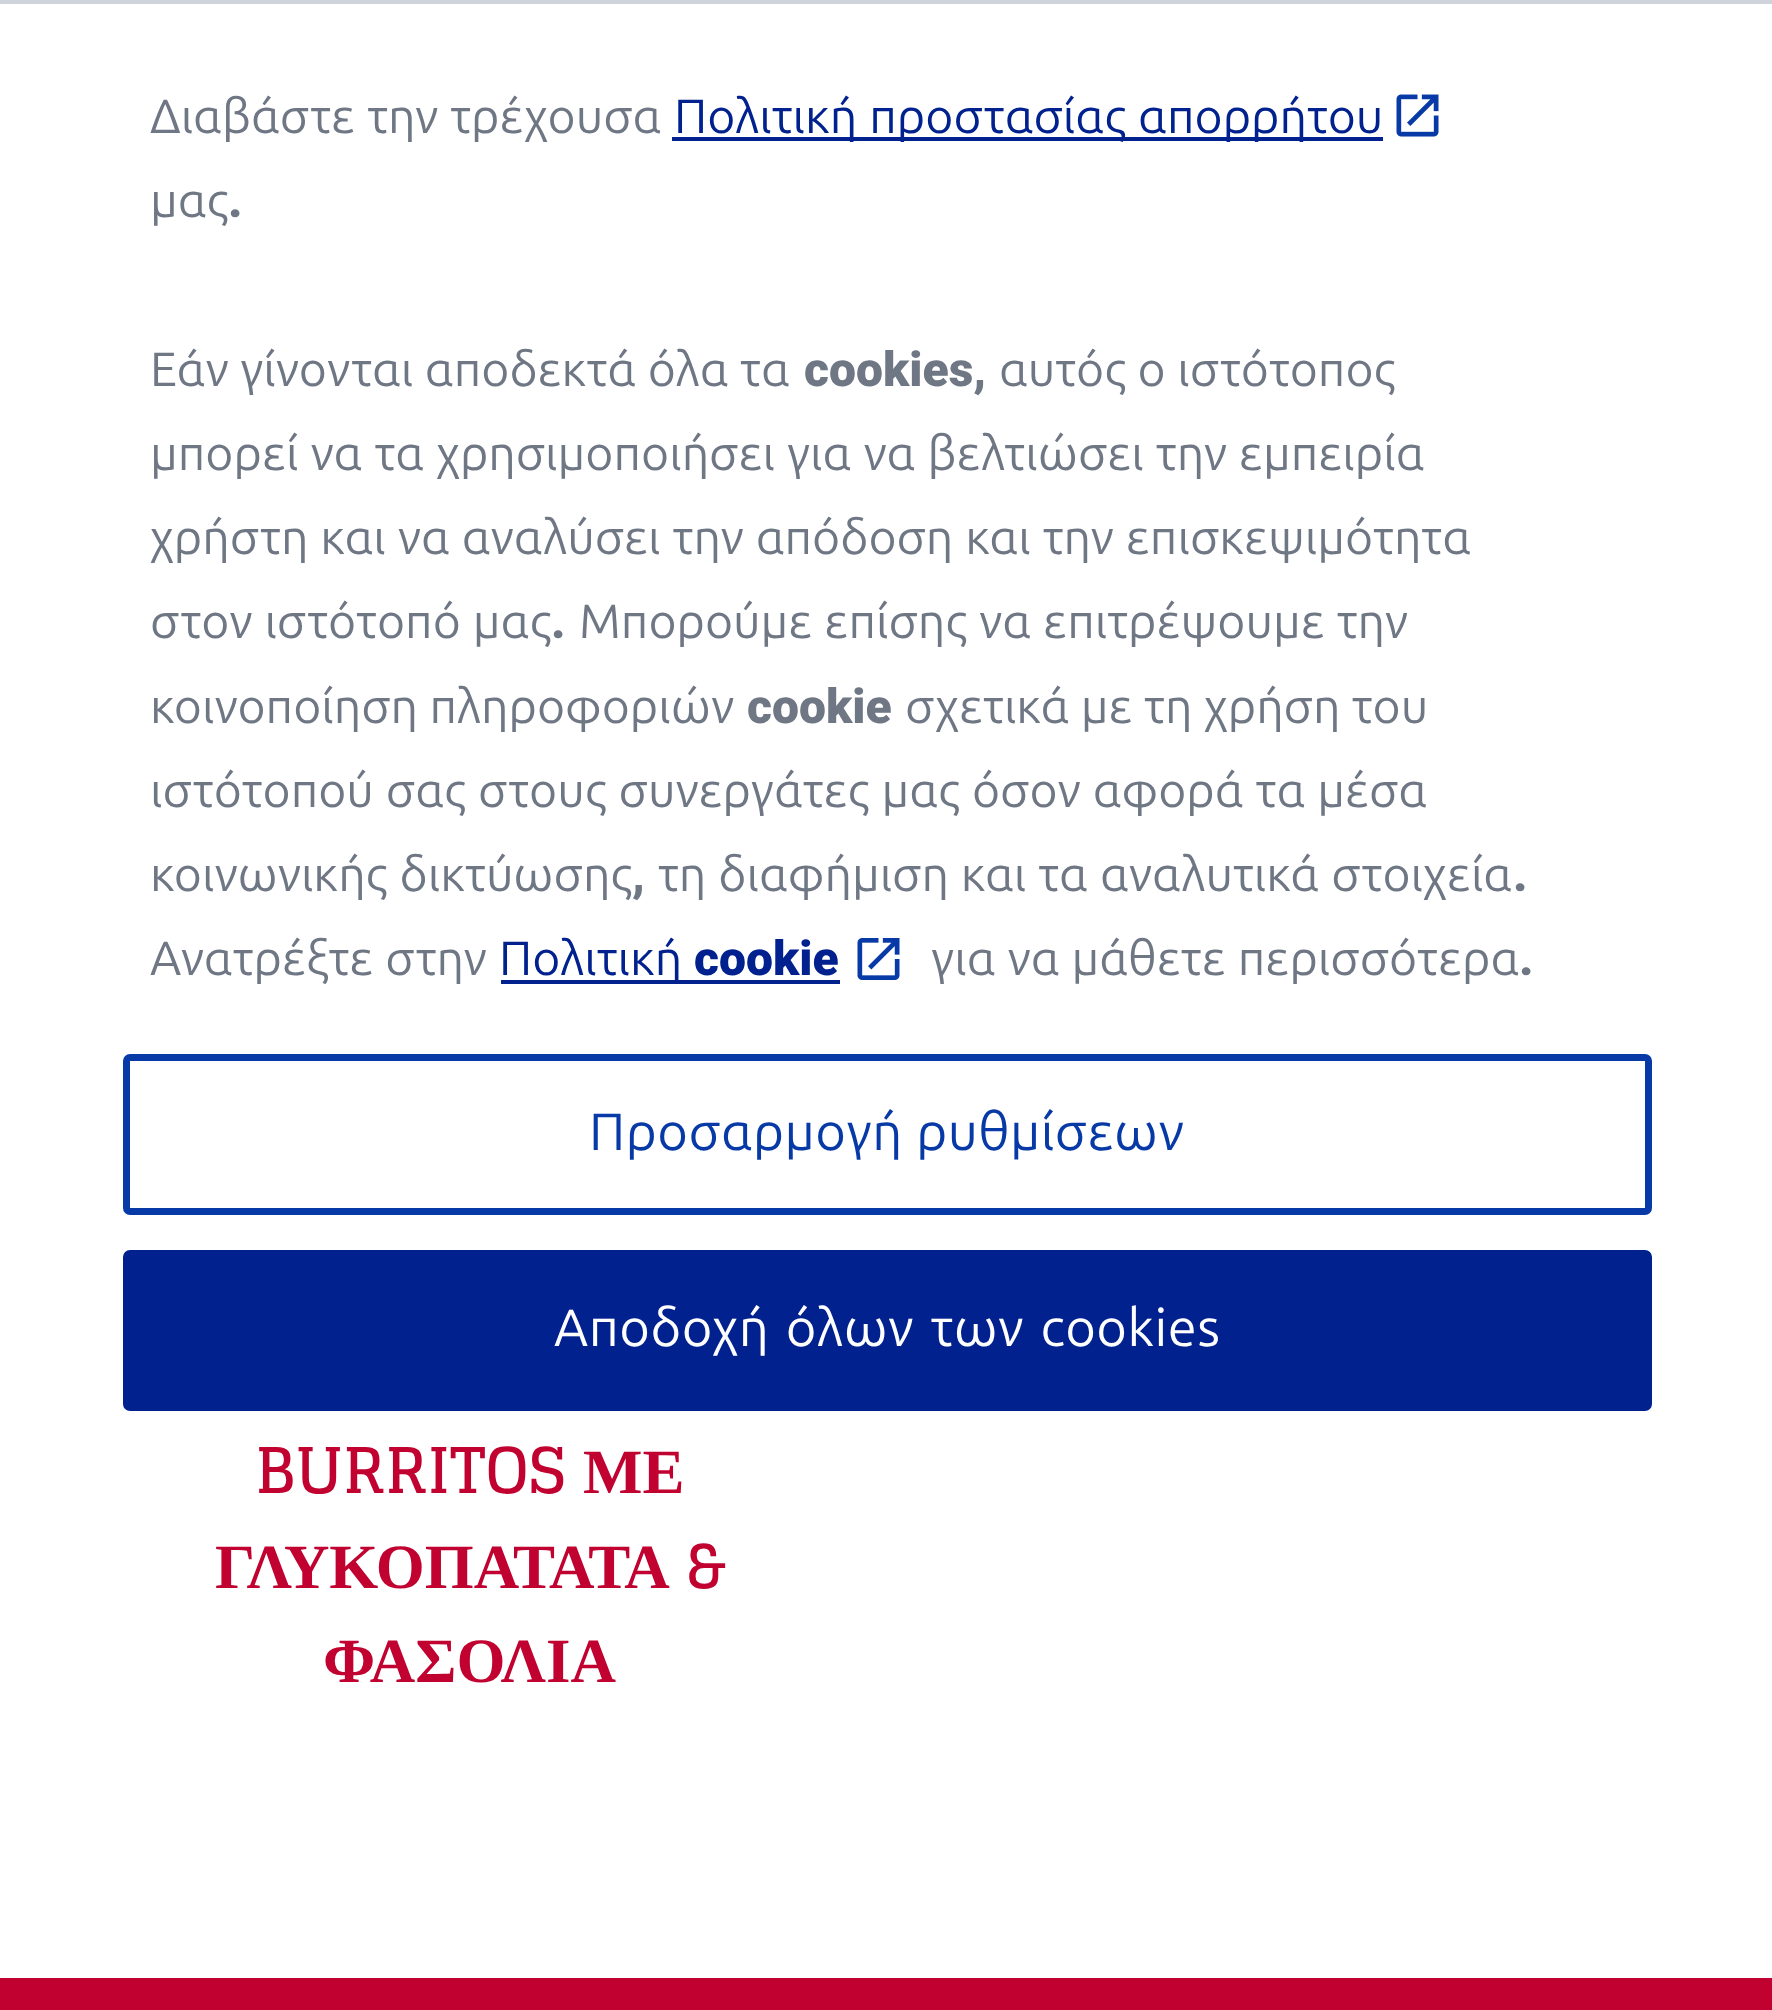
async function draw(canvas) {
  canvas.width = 1772;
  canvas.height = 2010;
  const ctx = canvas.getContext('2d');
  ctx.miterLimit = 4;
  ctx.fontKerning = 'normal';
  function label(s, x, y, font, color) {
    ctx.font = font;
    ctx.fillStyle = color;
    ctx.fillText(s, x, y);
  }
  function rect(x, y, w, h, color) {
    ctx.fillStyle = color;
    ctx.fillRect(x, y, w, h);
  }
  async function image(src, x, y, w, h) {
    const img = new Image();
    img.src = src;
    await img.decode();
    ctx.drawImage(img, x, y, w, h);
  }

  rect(0, 0, 1772, 2010, '#fff');
  rect(0, 0, 1772, 4, '#cfd4dc');
  ctx.wordSpacing = '1px';
  label('Διαβάστε την τρέχουσα', 150, 133, '48.1px Ubuntu', '#6f7785');
  rect(672, 137, 711, 4, '#00218e');
  label('Πολιτική προστασίας απορρήτου', 674, 133, '48.1px Ubuntu', '#00218e');
  await image('assets/img1.png', 1396, 94, 43, 43);
  ctx.wordSpacing = '0px';
  label('μας', 150, 217, '48.1px Ubuntu', '#6f7785');
  label('.', 228, 217, '900 48.1px Roboto', '#6f7785');
  ctx.wordSpacing = '0.5px';
  label('Εάν γίνονται αποδεκτά όλα τα', 150, 386, '48.1px Ubuntu', '#6f7785');
  ctx.wordSpacing = '0px';
  label('cookies,', 804, 386, '900 48.1px Roboto', '#6f7785');
  ctx.wordSpacing = '0.5px';
  label('αυτός ο ιστότοπος', 999, 386, '48.1px Ubuntu', '#6f7785');
  ctx.wordSpacing = '1px';
  label('μπορεί να τα χρησιμοποιήσει για να βελτιώσει την εμπειρία', 150, 470, '48.1px Ubuntu', '#6f7785');
  label('χρήστη και να αναλύσει την απόδοση και την επισκεψιμότητα', 150, 554, '48.1px Ubuntu', '#6f7785');
  label('στον ιστότοπό μας', 150, 638, '48.1px Ubuntu', '#6f7785');
  ctx.wordSpacing = '0px';
  label('.', 551, 638, '900 48.1px Roboto', '#6f7785');
  ctx.wordSpacing = '1px';
  label('Μπορούμε επίσης να επιτρέψουμε την', 579, 638, '48.1px Ubuntu', '#6f7785');
  ctx.wordSpacing = '0.5px';
  label('κοινοποίηση πληροφοριών', 150, 723, '48.1px Ubuntu', '#6f7785');
  ctx.wordSpacing = '0px';
  label('cookie', 747, 723, '900 48.1px Roboto', '#6f7785');
  ctx.wordSpacing = '0.5px';
  label('σχετικά με τη χρήση του', 905, 723, '48.1px Ubuntu', '#6f7785');
  ctx.wordSpacing = '1px';
  label('ιστότοπού σας στους συνεργάτες μας όσον αφορά τα μέσα', 150, 807, '48.1px Ubuntu', '#6f7785');
  label('κοινωνικής δικτύωσης', 150, 891, '48.1px Ubuntu', '#6f7785');
  ctx.wordSpacing = '0px';
  label(',', 632, 891, '900 48.1px Roboto', '#6f7785');
  ctx.wordSpacing = '1px';
  label('τη διαφήμιση και τα αναλυτικά στοιχεία', 658, 891, '48.1px Ubuntu', '#6f7785');
  ctx.wordSpacing = '0px';
  label('.', 1513, 891, '900 48.1px Roboto', '#6f7785');
  ctx.wordSpacing = '1px';
  label('Ανατρέξτε στην', 150, 975, '48.1px Ubuntu', '#6f7785');
  rect(501, 980, 339, 4, '#00218e');
  ctx.wordSpacing = '0px';
  label('Πολιτική', 499, 975, '48.1px Ubuntu', '#00218e');
  label('cookie', 694, 975, '900 48.1px Roboto', '#00218e');
  await image('assets/img2.png', 857, 938, 43, 42);
  ctx.wordSpacing = '1px';
  label('για να μάθετε περισσότερα', 931, 975, '48.1px Ubuntu', '#6f7785');
  ctx.wordSpacing = '0px';
  label('.', 1519, 975, '900 48.1px Roboto', '#6f7785');
  ctx.beginPath();
  ctx.roundRect(126.5, 1057.5, 1522, 154, 3.5);
  ctx.strokeStyle = '#083aa7';
  ctx.lineWidth = 7;
  ctx.stroke();
  ctx.letterSpacing = '0.5px';
  ctx.wordSpacing = '1px';
  label('Προσαρμογή ρυθμίσεων', 589, 1150, '52.5px Ubuntu', '#083aa7');
  ctx.fillStyle = '#00218e';
  ctx.beginPath();
  ctx.roundRect(126.5, 1253.5, 1522, 154, 3.5);
  ctx.fill();
  ctx.strokeStyle = '#00218e';
  ctx.stroke();
  ctx.wordSpacing = '4px';
  label('Αποδοχή όλων των cookies', 554, 1346, '52.5px Ubuntu', '#fff');
  ctx.letterSpacing = '0px';
  ctx.wordSpacing = '0px';
  label('BURRITOS', 255, 1493, 'bold 63px Glegoo', '#c10230');
  label('ΜΕ', 583, 1493, 'bold 63px Liberation Serif', '#c10230');
  label('ΓΛΥΚΟΠΑΤΑΤΑ', 215, 1588, 'bold 63px Liberation Serif', '#c10230');
  label('&', 686, 1588, 'bold 63px Glegoo', '#c10230');
  label('ΦΑΣΟΛΙΑ', 323, 1682, 'bold 63px Liberation Serif', '#c10230');
  rect(0, 1978, 1772, 32, '#c10230');
}

draw(document.querySelector('canvas'));
